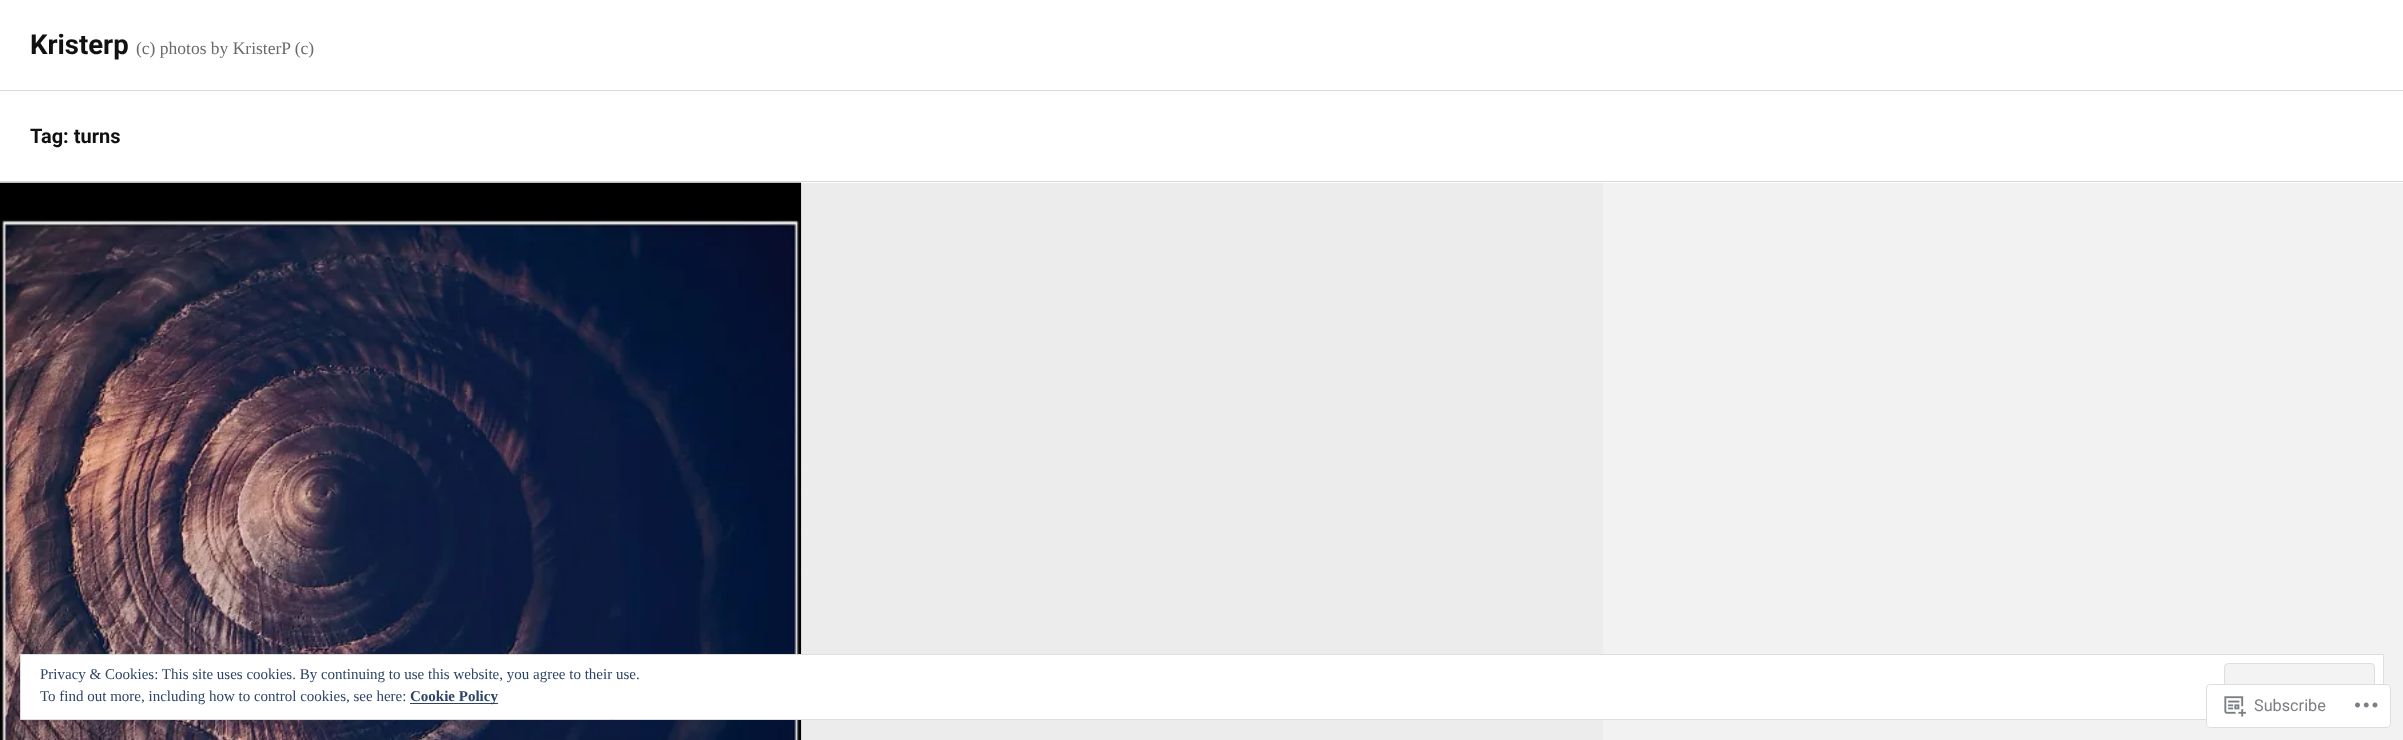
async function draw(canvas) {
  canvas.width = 2403;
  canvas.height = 740;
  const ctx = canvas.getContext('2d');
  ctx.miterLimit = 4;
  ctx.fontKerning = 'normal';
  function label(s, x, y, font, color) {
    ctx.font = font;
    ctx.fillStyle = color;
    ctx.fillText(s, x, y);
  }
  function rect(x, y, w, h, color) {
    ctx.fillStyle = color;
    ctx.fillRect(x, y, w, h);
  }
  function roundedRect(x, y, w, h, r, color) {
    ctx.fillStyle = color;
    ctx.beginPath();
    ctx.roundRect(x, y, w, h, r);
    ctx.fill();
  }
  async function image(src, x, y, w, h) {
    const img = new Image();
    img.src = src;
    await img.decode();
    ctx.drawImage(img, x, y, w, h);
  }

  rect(0, 0, 2403, 740, '#fff');
  rect(0, 90, 2403, 1, '#d9d9d9');
  label('Kristerp', 30, 54, 'bold 27.5px Roboto', '#111');
  label('(c) photos by KristerP (c)', 136, 54, '17.5px Liberation Serif', '#6a6a6a');
  rect(0, 181, 2403, 1, '#d9d9d9');
  label('Tag: turns', 30, 143, 'bold 20px Roboto', '#111');
  rect(801, 183, 802, 557, '#ececec');
  await image('assets/img1.png', 0, 182, 802, 558);
  rect(1603, 183, 800, 557, '#f2f2f2');
  ctx.fillStyle = '#fff';
  ctx.beginPath();
  ctx.rect(20.5, 654.5, 2363, 65);
  ctx.fill();
  ctx.strokeStyle = '#dedede';
  ctx.stroke();
  label('Privacy & Cookies: This site uses cookies. By continuing to use this website, you agree to their use.', 40, 679, '15px Liberation Serif', '#2e4467');
  ctx.fillStyle = '#f3f3f3';
  ctx.beginPath();
  ctx.roundRect(2224.5, 663.5, 150, 47, 3.5);
  ctx.fill();
  ctx.stroke();
  label('To find out more, including how to control cookies, see here:', 40, 701, '15px Liberation Serif', '#2e4467');
  rect(410, 703, 88, 1, '#2e4467');
  label('Cookie Policy', 410, 701, 'bold 15px Liberation Serif', '#2e4467');
  roundedRect(2206, 684, 185, 44, 4, '#fffffffa');
  ctx.beginPath();
  ctx.roundRect(2206.5, 684.5, 184, 43, 3.5);
  ctx.strokeStyle = '#dcdcdefa';
  ctx.stroke();
  await image('assets/img2.png', 2224, 696, 22, 21);
  label('Subscribe', 2254, 711, '16.25px Roboto', '#7b7f84');
  await image('assets/img3.png', 2355, 702, 23, 6);
}

draw(document.querySelector('canvas'));
